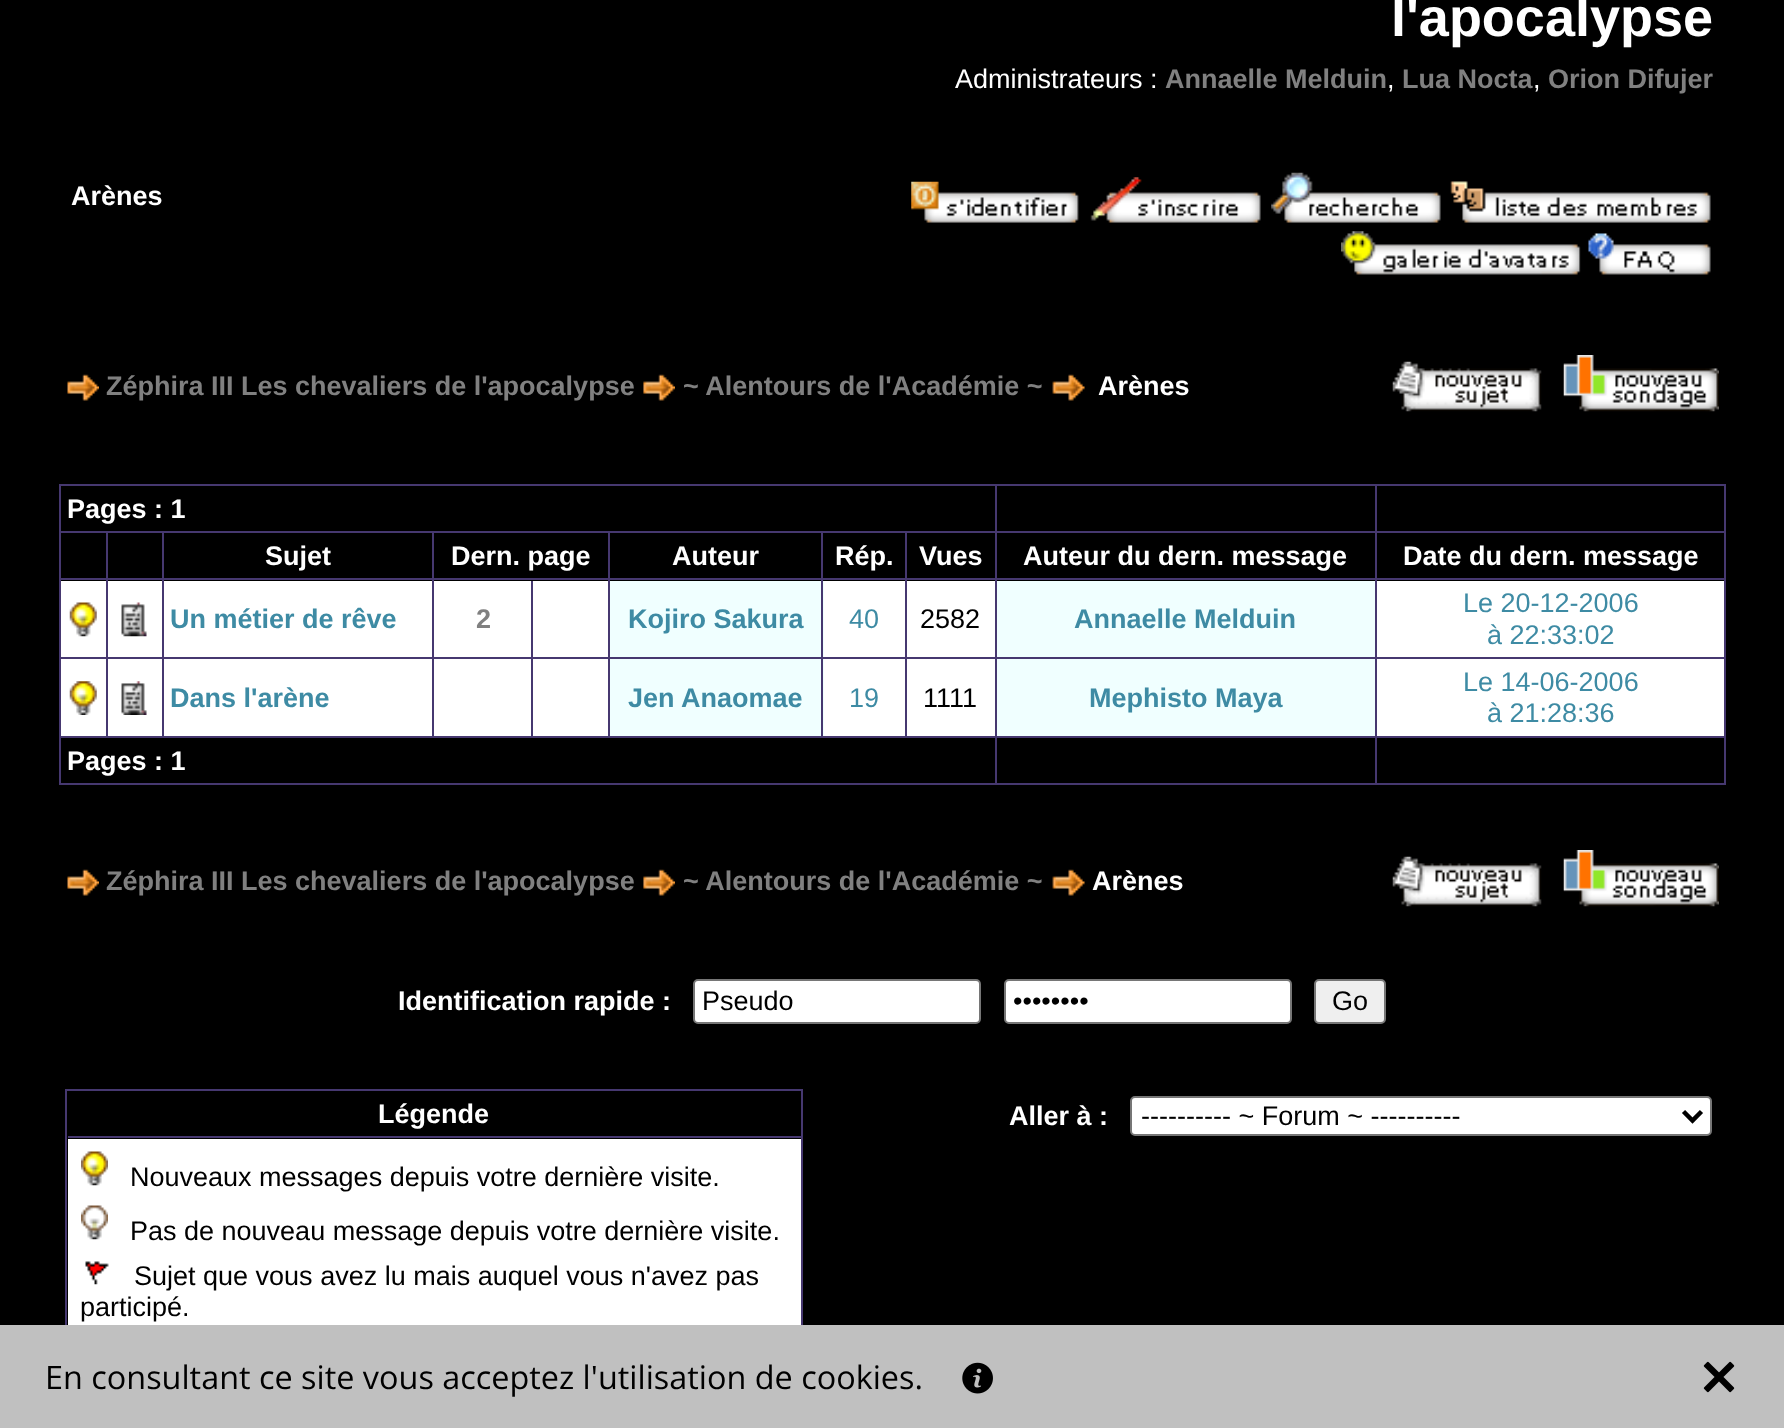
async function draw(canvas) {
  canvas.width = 1784;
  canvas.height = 1428;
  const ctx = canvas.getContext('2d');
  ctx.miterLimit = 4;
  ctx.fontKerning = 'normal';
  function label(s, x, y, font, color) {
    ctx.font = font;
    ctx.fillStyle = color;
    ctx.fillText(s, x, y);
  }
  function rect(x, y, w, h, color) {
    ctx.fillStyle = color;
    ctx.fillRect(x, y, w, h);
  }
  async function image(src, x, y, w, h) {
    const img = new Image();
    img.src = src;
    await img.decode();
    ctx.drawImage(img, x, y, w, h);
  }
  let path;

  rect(0, 0, 1784, 1428, '#000');
  label('l\'apocalypse', 1391, 36, 'bold 54px Liberation Sans', '#fff');
  label('Administrateurs :', 955, 88, '27px Liberation Sans', '#fff');
  label('Annaelle Melduin', 1165, 88, 'bold 27px Liberation Sans', '#808080');
  label(',', 1387, 88, '27px Liberation Sans', '#fff');
  label('Lua Nocta', 1402, 88, 'bold 27px Liberation Sans', '#808080');
  label(',', 1533, 88, '27px Liberation Sans', '#fff');
  label('Orion Difujer', 1548, 88, 'bold 27px Liberation Sans', '#808080');
  label('Arènes', 71, 205, 'bold 27px Liberation Sans', '#fff');
  await image('assets/img1.png', 911, 181, 168, 42);
  await image('assets/img2.png', 1090, 177, 171, 46);
  await image('assets/img3.png', 1271, 172, 170, 51);
  await image('assets/img4.png', 1450, 181, 261, 42);
  await image('assets/img5.png', 1341, 231, 240, 44);
  await image('assets/img6.png', 1588, 233, 123, 42);
  await image('assets/img7.png', 67, 374, 32, 27);
  label('Zéphira III Les chevaliers de l\'apocalypse', 106, 395, 'bold 27px Liberation Sans', '#808080');
  await image('assets/img8.png', 643, 374, 32, 27);
  label('~ Alentours de l\'Académie ~', 683, 395, 'bold 27px Liberation Sans', '#808080');
  await image('assets/img9.png', 1052, 374, 33, 27);
  label('Arènes', 1098, 395, 'bold 27px Liberation Sans', '#fff');
  await image('assets/img10.png', 1392, 361, 150, 51);
  await image('assets/img11.png', 1563, 355, 156, 57);
  rect(59, 484, 1667, 2, '#463870');
  rect(59, 484, 2, 301, '#463870');
  rect(995, 486, 2, 299, '#463870');
  rect(61, 531, 936, 2, '#463870');
  label('Pages : 1', 67, 518, 'bold 27px Liberation Sans', '#fff');
  rect(1375, 486, 2, 299, '#463870');
  rect(997, 531, 380, 2, '#463870');
  rect(1724, 486, 2, 299, '#463870');
  rect(1377, 531, 349, 2, '#463870');
  rect(106, 533, 2, 205, '#463870');
  rect(61, 578, 47, 2, '#463870');
  rect(162, 533, 2, 205, '#463870');
  rect(108, 578, 56, 2, '#463870');
  rect(432, 533, 2, 205, '#463870');
  rect(164, 578, 270, 2, '#463870');
  label('Sujet', 265, 565, 'bold 27px Liberation Sans', '#fff');
  rect(608, 533, 2, 205, '#463870');
  rect(434, 578, 176, 2, '#463870');
  label('Dern. page', 451, 565, 'bold 27px Liberation Sans', '#fff');
  rect(821, 533, 2, 48, '#463870');
  rect(610, 578, 214, 2, '#463870');
  label('Auteur', 672, 565, 'bold 27px Liberation Sans', '#fff');
  rect(905, 533, 2, 205, '#463870');
  rect(824, 578, 902, 2, '#463870');
  label('Rép.', 835, 565, 'bold 27px Liberation Sans', '#fff');
  label('Vues', 919, 565, 'bold 27px Liberation Sans', '#fff');
  label('Auteur du dern. message', 1023, 565, 'bold 27px Liberation Sans', '#fff');
  label('Date du dern. message', 1403, 565, 'bold 27px Liberation Sans', '#fff');
  rect(61, 581, 45, 76, '#fff');
  rect(61, 657, 373, 2, '#463870');
  await image('assets/img12.png', 69, 602, 28, 35);
  rect(108, 581, 54, 76, '#fff');
  await image('assets/img13.png', 121, 602, 26, 35);
  rect(164, 581, 268, 76, '#fff');
  label('Un métier de rêve', 170, 628, 'bold 27px Liberation Sans', '#3e8ba4');
  rect(434, 581, 97, 76, '#fff');
  rect(531, 581, 2, 157, '#463870');
  rect(434, 657, 176, 2, '#463870');
  label('2', 476, 628, 'bold 27px Liberation Sans', '#808080');
  rect(533, 581, 75, 76, '#fff');
  rect(610, 581, 214, 76, '#f0ffff');
  rect(821, 581, 2, 78, '#463870');
  rect(610, 657, 1116, 2, '#463870');
  label('Kojiro Sakura', 628, 628, 'bold 27px Liberation Sans', '#3e8ba4');
  rect(824, 581, 81, 76, '#fff');
  label('40', 849, 628, '27px Liberation Sans', '#3e8ba4');
  rect(907, 581, 88, 76, '#fff');
  label('2582', 920, 628, '27px Liberation Sans', '#000');
  rect(997, 581, 378, 76, '#f0ffff');
  label('Annaelle Melduin', 1074, 628, 'bold 27px Liberation Sans', '#3e8ba4');
  rect(1377, 581, 347, 76, '#fff');
  label('Le 20-12-2006', 1463, 612, '27px Liberation Sans', '#3e8ba4');
  label('à 22:33:02', 1487, 644, '27px Liberation Sans', '#3e8ba4');
  rect(61, 659, 45, 77, '#fff');
  rect(61, 736, 549, 2, '#463870');
  await image('assets/img14.png', 69, 681, 28, 34);
  rect(108, 659, 54, 77, '#fff');
  await image('assets/img15.png', 121, 681, 26, 34);
  rect(164, 659, 268, 77, '#fff');
  label('Dans l\'arène', 170, 707, 'bold 27px Liberation Sans', '#3e8ba4');
  rect(434, 659, 97, 77, '#fff');
  rect(533, 659, 75, 77, '#fff');
  rect(610, 659, 214, 77, '#f0ffff');
  rect(821, 659, 2, 79, '#463870');
  rect(610, 736, 1116, 2, '#463870');
  label('Jen Anaomae', 628, 707, 'bold 27px Liberation Sans', '#3e8ba4');
  rect(824, 659, 81, 77, '#fff');
  label('19', 849, 707, '27px Liberation Sans', '#3e8ba4');
  rect(907, 659, 88, 77, '#fff');
  label('1111', 923, 707, '27px Liberation Sans', '#000');
  rect(997, 659, 378, 77, '#f0ffff');
  label('Mephisto Maya', 1089, 707, 'bold 27px Liberation Sans', '#3e8ba4');
  rect(1377, 659, 347, 77, '#fff');
  label('Le 14-06-2006', 1463, 691, '27px Liberation Sans', '#3e8ba4');
  label('à 21:28:36', 1487, 722, '27px Liberation Sans', '#3e8ba4');
  rect(61, 783, 1665, 2, '#463870');
  label('Pages : 1', 67, 770, 'bold 27px Liberation Sans', '#fff');
  await image('assets/img7.png', 67, 869, 32, 27);
  label('Zéphira III Les chevaliers de l\'apocalypse', 106, 890, 'bold 27px Liberation Sans', '#808080');
  await image('assets/img8.png', 643, 869, 32, 27);
  label('~ Alentours de l\'Académie ~', 683, 890, 'bold 27px Liberation Sans', '#808080');
  await image('assets/img9.png', 1052, 869, 33, 27);
  label('Arènes', 1092, 890, 'bold 27px Liberation Sans', '#fff');
  await image('assets/img10.png', 1392, 856, 150, 51);
  await image('assets/img11.png', 1563, 850, 156, 57);
  label('Identification rapide :', 398, 1010, 'bold 27px Liberation Sans', '#fff');
  ctx.beginPath();
  ctx.roundRect(694, 980, 286, 43, 4);
  ctx.fill();
  ctx.strokeStyle = '#767676';
  ctx.lineWidth = 2;
  ctx.stroke();
  label('Pseudo', 702, 1010, '27px Liberation Sans', '#000');
  ctx.fillStyle = '#fff';
  ctx.beginPath();
  ctx.roundRect(1005, 980, 286, 43, 4);
  ctx.fill();
  ctx.stroke();
  label('••••••••', 1013, 1010, '27px Liberation Sans', '#000');
  ctx.fillStyle = '#efefef';
  ctx.beginPath();
  ctx.roundRect(1315, 980, 70, 43, 4);
  ctx.fill();
  ctx.stroke();
  label('Go', 1332, 1010, '27px Liberation Sans', '#000');
  rect(65, 1089, 738, 2, '#463870');
  rect(65, 1089, 2, 236, '#463870');
  rect(801, 1091, 2, 234, '#463870');
  rect(68, 1136, 735, 2, '#463870');
  label('Légende', 378, 1123, 'bold 27px Liberation Sans', '#fff');
  rect(68, 1139, 733, 186, '#fff');
  await image('assets/img16.png', 81, 1151, 27, 35);
  label('Nouveaux messages depuis votre dernière visite.', 130, 1186, '27px Liberation Sans', '#000');
  await image('assets/img17.png', 81, 1205, 27, 35);
  label('Pas de nouveau message depuis votre dernière visite.', 130, 1240, '27px Liberation Sans', '#000');
  await image('assets/img18.png', 85, 1261, 24, 24);
  label('Sujet que vous avez lu mais auquel vous n\'avez pas', 134, 1285, '27px Liberation Sans', '#000');
  label('participé.', 80, 1316, '27px Liberation Sans', '#000');
  label('Aller à :', 1009, 1125, 'bold 27px Liberation Sans', '#fff');
  ctx.beginPath();
  ctx.roundRect(1131, 1097, 580, 38, 4);
  ctx.fill();
  ctx.stroke();
  path = new Path2D('M1683.5 1111.5L1692.5 1120.5L1701.5 1111.5');
  ctx.strokeStyle = '#000';
  ctx.lineWidth = 4.5;
  ctx.stroke(path);
  label('---------- ~ Forum ~ ----------', 1141, 1125, '27px Liberation Sans', '#000');
  rect(0, 1325, 1784, 103, '#c0c0c0');
  label('En consultant ce site vous acceptez l\'utilisation de cookies.', 45, 1389, '32.4px Open Sans', '#000');
  await image('assets/img19.png', 962, 1362, 31, 32);
  await image('assets/img20.png', 1703, 1361, 32, 32);
}

draw(document.querySelector('canvas'));
